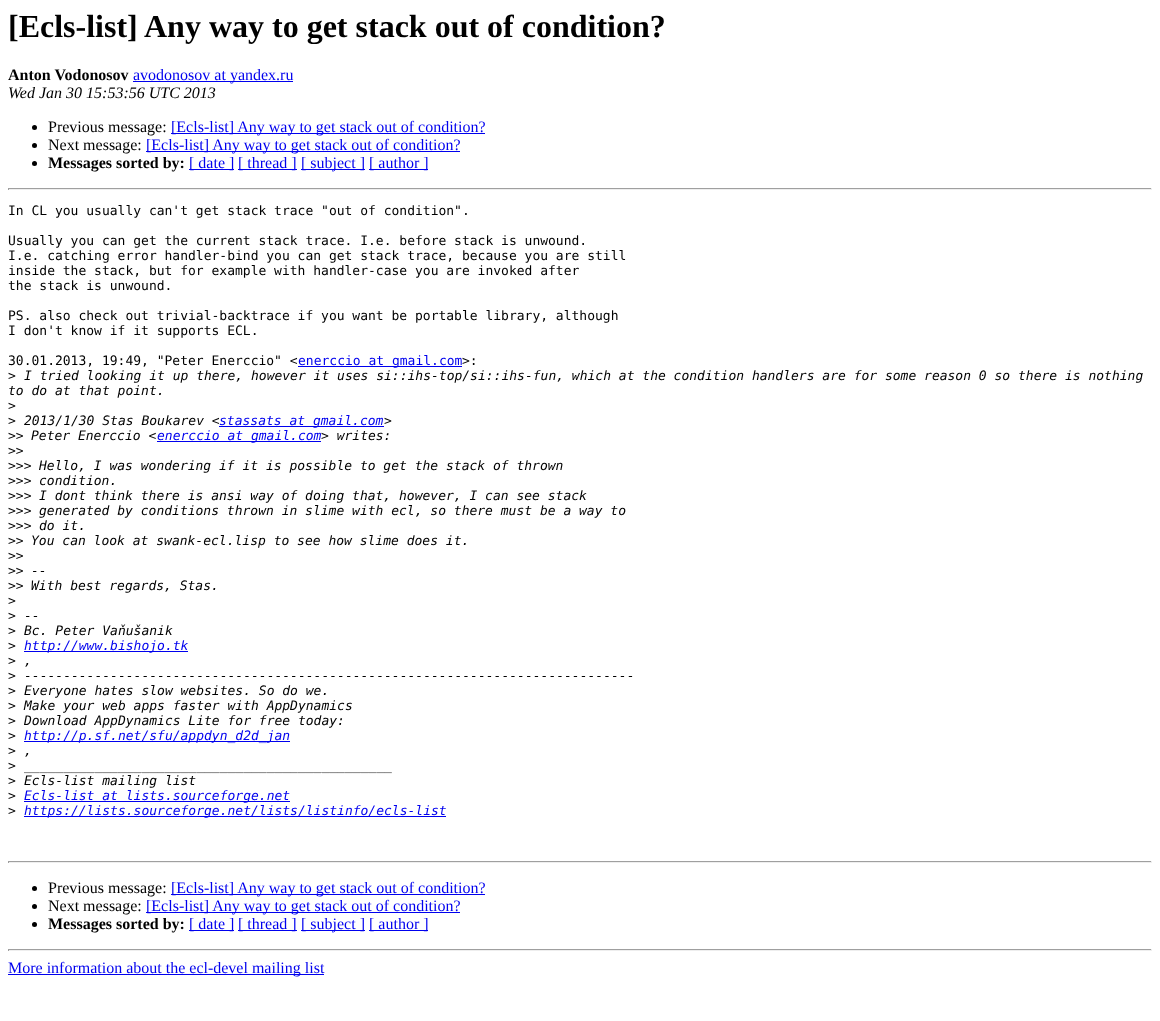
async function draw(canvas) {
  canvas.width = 1160;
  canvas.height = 1021;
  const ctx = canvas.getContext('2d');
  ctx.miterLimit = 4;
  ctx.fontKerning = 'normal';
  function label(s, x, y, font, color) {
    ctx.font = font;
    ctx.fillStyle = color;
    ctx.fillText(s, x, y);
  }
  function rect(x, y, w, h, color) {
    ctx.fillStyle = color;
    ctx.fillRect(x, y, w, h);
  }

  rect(0, 0, 1160, 1021, '#fff');
  label('[Ecls-list] Any way to get stack out of condition?', 8, 37, 'bold 32px Liberation Serif', '#000');
  label('Anton Vodonosov', 8, 80, 'bold 16px Liberation Serif', '#000');
  rect(133, 81, 160, 1, '#00e');
  label('avodonosov at yandex.ru', 133, 80, '16px Liberation Serif', '#00e');
  label('Wed Jan 30 15:53:56 UTC 2013', 8, 98, 'italic 16px Liberation Serif', '#000');
  ctx.beginPath();
  ctx.arc(34.5, 127.5, 2.5, 0, 2 * Math.PI);
  ctx.fill();
  label('Previous message:', 48, 132, '16px Liberation Serif', '#000');
  rect(171, 133, 314, 1, '#00e');
  label('[Ecls-list] Any way to get stack out of condition?', 171, 132, '16px Liberation Serif', '#00e');
  ctx.fillStyle = '#000';
  ctx.beginPath();
  ctx.arc(34.5, 145.5, 2.5, 0, 2 * Math.PI);
  ctx.fill();
  label('Next message:', 48, 150, '16px Liberation Serif', '#000');
  rect(146, 151, 314, 1, '#00e');
  label('[Ecls-list] Any way to get stack out of condition?', 146, 150, '16px Liberation Serif', '#00e');
  ctx.fillStyle = '#000';
  ctx.beginPath();
  ctx.arc(34.5, 163.5, 2.5, 0, 2 * Math.PI);
  ctx.fill();
  label('Messages sorted by:', 48, 168, 'bold 16px Liberation Serif', '#000');
  rect(189, 169, 45, 1, '#00e');
  label('[ date ]', 189, 168, '16px Liberation Serif', '#00e');
  rect(238, 169, 59, 1, '#00e');
  label('[ thread ]', 238, 168, '16px Liberation Serif', '#00e');
  rect(301, 169, 64, 1, '#00e');
  label('[ subject ]', 301, 168, '16px Liberation Serif', '#00e');
  rect(369, 169, 59, 1, '#00e');
  label('[ author ]', 369, 168, '16px Liberation Serif', '#00e');
  rect(8, 188, 1144, 1, '#9f9f9f');
  rect(1151, 188, 1, 2, '#eee');
  rect(8, 189, 1144, 1, '#eee');
  rect(8, 188, 1, 2, '#9f9f9f');
  label('In CL you usually can\'t get stack trace "out of condition".', 8, 215, '13px DejaVu Sans Mono', '#000');
  label('Usually you can get the current stack trace. I.e. before stack is unwound.', 8, 245, '13px DejaVu Sans Mono', '#000');
  label('I.e. catching error handler-bind you can get stack trace, because you are still', 8, 260, '13px DejaVu Sans Mono', '#000');
  label('inside the stack, but for example with handler-case you are invoked after', 8, 275, '13px DejaVu Sans Mono', '#000');
  label('the stack is unwound.', 8, 290, '13px DejaVu Sans Mono', '#000');
  label('PS. also check out trivial-backtrace if you want be portable library, although', 8, 320, '13px DejaVu Sans Mono', '#000');
  label('I don\'t know if it supports ECL.', 8, 335, '13px DejaVu Sans Mono', '#000');
  label('30.01.2013, 19:49, "Peter Enerccio" <', 8, 365, '13px DejaVu Sans Mono', '#000');
  rect(298, 366, 164, 1, '#00e');
  label('enerccio at gmail.com', 298, 365, '13px DejaVu Sans Mono', '#00e');
  label('>:', 462, 365, '13px DejaVu Sans Mono', '#000');
  label('>', 8, 380, '13px DejaVu Sans Mono', '#000');
  label('I tried looking it up there, however it uses si::ihs-top/si::ihs-fun, which at the condition handlers are for some reason 0 so there is nothing', 24, 380, 'italic 13px DejaVu Sans Mono', '#000');
  label('to do at that point.', 8, 395, 'italic 13px DejaVu Sans Mono', '#000');
  label('>', 8, 410, '13px DejaVu Sans Mono', '#000');
  label('>', 8, 425, '13px DejaVu Sans Mono', '#000');
  label('2013/1/30 Stas Boukarev <', 24, 425, 'italic 13px DejaVu Sans Mono', '#000');
  rect(219, 426, 165, 1, '#00e');
  label('stassats at gmail.com', 219, 425, 'italic 13px DejaVu Sans Mono', '#00e');
  label('>', 384, 425, 'italic 13px DejaVu Sans Mono', '#000');
  label('>>', 8, 440, '13px DejaVu Sans Mono', '#000');
  label('Peter Enerccio <', 31, 440, 'italic 13px DejaVu Sans Mono', '#000');
  rect(157, 441, 164, 1, '#00e');
  label('enerccio at gmail.com', 157, 440, 'italic 13px DejaVu Sans Mono', '#00e');
  label('> writes:', 321, 440, 'italic 13px DejaVu Sans Mono', '#000');
  label('>>', 8, 455, '13px DejaVu Sans Mono', '#000');
  label('>>>', 8, 470, '13px DejaVu Sans Mono', '#000');
  label('Hello, I was wondering if it is possible to get the stack of thrown', 39, 470, 'italic 13px DejaVu Sans Mono', '#000');
  label('>>>', 8, 485, '13px DejaVu Sans Mono', '#000');
  label('condition.', 39, 485, 'italic 13px DejaVu Sans Mono', '#000');
  label('>>>', 8, 500, '13px DejaVu Sans Mono', '#000');
  label('I dont think there is ansi way of doing that, however, I can see stack', 39, 500, 'italic 13px DejaVu Sans Mono', '#000');
  label('>>>', 8, 515, '13px DejaVu Sans Mono', '#000');
  label('generated by conditions thrown in slime with ecl, so there must be a way to', 39, 515, 'italic 13px DejaVu Sans Mono', '#000');
  label('>>>', 8, 530, '13px DejaVu Sans Mono', '#000');
  label('do it.', 39, 530, 'italic 13px DejaVu Sans Mono', '#000');
  label('>>', 8, 545, '13px DejaVu Sans Mono', '#000');
  label('You can look at swank-ecl.lisp to see how slime does it.', 31, 545, 'italic 13px DejaVu Sans Mono', '#000');
  label('>>', 8, 560, '13px DejaVu Sans Mono', '#000');
  label('>>', 8, 575, '13px DejaVu Sans Mono', '#000');
  label('--', 31, 575, 'italic 13px DejaVu Sans Mono', '#000');
  label('>>', 8, 590, '13px DejaVu Sans Mono', '#000');
  label('With best regards, Stas.', 31, 590, 'italic 13px DejaVu Sans Mono', '#000');
  label('>', 8, 605, '13px DejaVu Sans Mono', '#000');
  label('>', 8, 620, '13px DejaVu Sans Mono', '#000');
  label('--', 24, 620, 'italic 13px DejaVu Sans Mono', '#000');
  label('>', 8, 635, '13px DejaVu Sans Mono', '#000');
  label('Bc. Peter Vaňušanik', 24, 635, 'italic 13px DejaVu Sans Mono', '#000');
  label('>', 8, 650, '13px DejaVu Sans Mono', '#000');
  rect(24, 651, 164, 1, '#00e');
  label('http://www.bishojo.tk', 24, 650, 'italic 13px DejaVu Sans Mono', '#00e');
  label('>', 8, 665, '13px DejaVu Sans Mono', '#000');
  label(',', 24, 665, 'italic 13px DejaVu Sans Mono', '#000');
  label('>', 8, 680, '13px DejaVu Sans Mono', '#000');
  label('------------------------------------------------------------------------------', 24, 680, 'italic 13px DejaVu Sans Mono', '#000');
  label('>', 8, 695, '13px DejaVu Sans Mono', '#000');
  label('Everyone hates slow websites. So do we.', 24, 695, 'italic 13px DejaVu Sans Mono', '#000');
  label('>', 8, 710, '13px DejaVu Sans Mono', '#000');
  label('Make your web apps faster with AppDynamics', 24, 710, 'italic 13px DejaVu Sans Mono', '#000');
  label('>', 8, 725, '13px DejaVu Sans Mono', '#000');
  label('Download AppDynamics Lite for free today:', 24, 725, 'italic 13px DejaVu Sans Mono', '#000');
  label('>', 8, 740, '13px DejaVu Sans Mono', '#000');
  rect(24, 741, 266, 1, '#00e');
  label('http://p.sf.net/sfu/appdyn_d2d_jan', 24, 740, 'italic 13px DejaVu Sans Mono', '#00e');
  label('>', 8, 755, '13px DejaVu Sans Mono', '#000');
  label(',', 24, 755, 'italic 13px DejaVu Sans Mono', '#000');
  label('>', 8, 770, '13px DejaVu Sans Mono', '#000');
  label('_______________________________________________', 24, 770, 'italic 13px DejaVu Sans Mono', '#000');
  label('>', 8, 785, '13px DejaVu Sans Mono', '#000');
  label('Ecls-list mailing list', 24, 785, 'italic 13px DejaVu Sans Mono', '#000');
  label('>', 8, 800, '13px DejaVu Sans Mono', '#000');
  rect(24, 801, 266, 1, '#00e');
  label('Ecls-list at lists.sourceforge.net', 24, 800, 'italic 13px DejaVu Sans Mono', '#00e');
  label('>', 8, 815, '13px DejaVu Sans Mono', '#000');
  rect(24, 816, 422, 1, '#00e');
  label('https://lists.sourceforge.net/lists/listinfo/ecls-list', 24, 815, 'italic 13px DejaVu Sans Mono', '#00e');
  rect(8, 861, 1144, 1, '#9f9f9f');
  rect(1151, 861, 1, 2, '#eee');
  rect(8, 862, 1144, 1, '#eee');
  rect(8, 861, 1, 2, '#9f9f9f');
  ctx.fillStyle = '#000';
  ctx.beginPath();
  ctx.arc(34.5, 888.5, 2.5, 0, 2 * Math.PI);
  ctx.fill();
  label('Previous message:', 48, 893, '16px Liberation Serif', '#000');
  rect(171, 894, 314, 1, '#00e');
  label('[Ecls-list] Any way to get stack out of condition?', 171, 893, '16px Liberation Serif', '#00e');
  ctx.fillStyle = '#000';
  ctx.beginPath();
  ctx.arc(34.5, 906.5, 2.5, 0, 2 * Math.PI);
  ctx.fill();
  label('Next message:', 48, 911, '16px Liberation Serif', '#000');
  rect(146, 912, 314, 1, '#00e');
  label('[Ecls-list] Any way to get stack out of condition?', 146, 911, '16px Liberation Serif', '#00e');
  ctx.fillStyle = '#000';
  ctx.beginPath();
  ctx.arc(34.5, 924.5, 2.5, 0, 2 * Math.PI);
  ctx.fill();
  label('Messages sorted by:', 48, 929, 'bold 16px Liberation Serif', '#000');
  rect(189, 930, 45, 1, '#00e');
  label('[ date ]', 189, 929, '16px Liberation Serif', '#00e');
  rect(238, 930, 59, 1, '#00e');
  label('[ thread ]', 238, 929, '16px Liberation Serif', '#00e');
  rect(301, 930, 64, 1, '#00e');
  label('[ subject ]', 301, 929, '16px Liberation Serif', '#00e');
  rect(369, 930, 59, 1, '#00e');
  label('[ author ]', 369, 929, '16px Liberation Serif', '#00e');
  rect(8, 949, 1144, 1, '#9f9f9f');
  rect(1151, 949, 1, 2, '#eee');
  rect(8, 950, 1144, 1, '#eee');
  rect(8, 949, 1, 2, '#9f9f9f');
  rect(8, 974, 316, 1, '#00e');
  label('More information about the ecl-devel mailing list', 8, 973, '16px Liberation Serif', '#00e');
}

draw(document.querySelector('canvas'));
